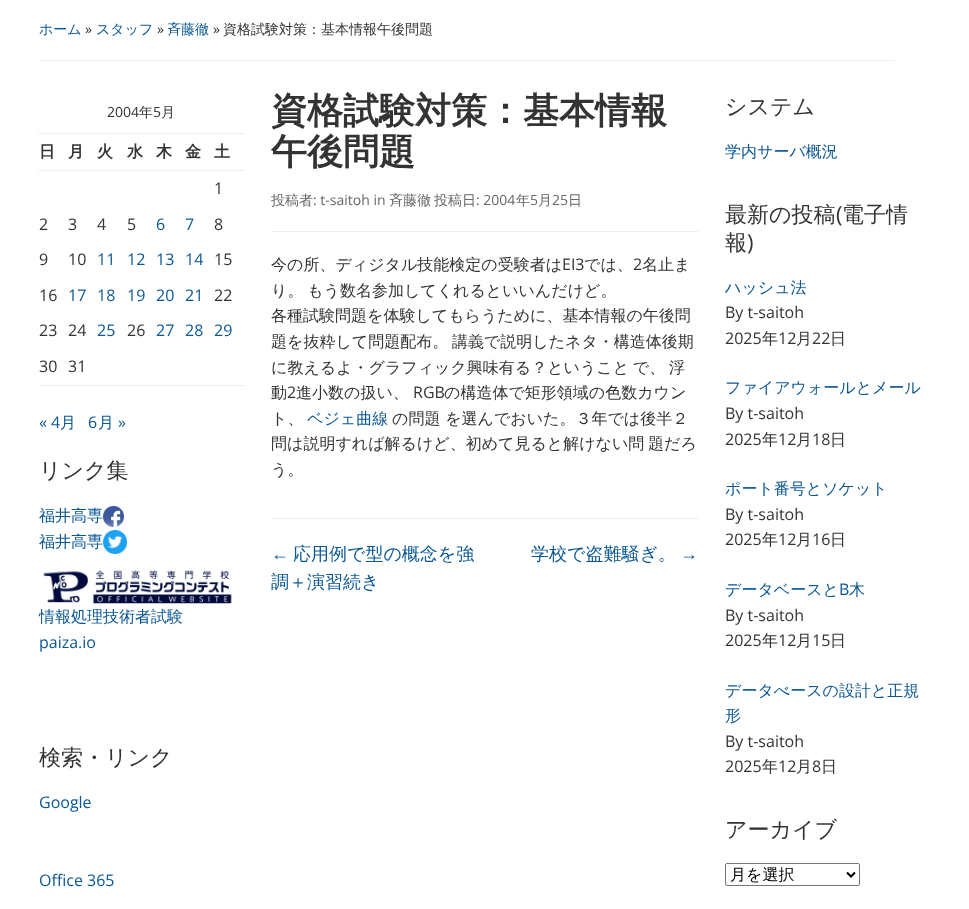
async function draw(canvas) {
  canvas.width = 969;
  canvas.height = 909;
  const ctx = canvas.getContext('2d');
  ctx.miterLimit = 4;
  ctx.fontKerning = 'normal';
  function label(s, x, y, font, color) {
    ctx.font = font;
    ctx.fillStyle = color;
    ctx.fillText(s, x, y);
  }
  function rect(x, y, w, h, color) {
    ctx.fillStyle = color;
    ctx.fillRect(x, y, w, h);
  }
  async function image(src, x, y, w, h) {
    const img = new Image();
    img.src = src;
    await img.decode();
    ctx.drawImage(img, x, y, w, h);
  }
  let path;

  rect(0, 0, 969, 909, '#fff');
  rect(39, 60, 856, 1, '#eee');
  label('ホーム', 39, 34, '500 14px WenQuanYi Zen Hei', '#0a5794');
  label('»', 85, 34, '14px Open Sans', '#333');
  label('スタッフ', 96, 34, '500 14px WenQuanYi Zen Hei', '#0a5794');
  label('»', 157, 34, '14px Open Sans', '#333');
  label('斉藤徹', 167, 34, '500 14px WenQuanYi Zen Hei', '#0a5794');
  label('»', 213, 34, '14px Open Sans', '#333');
  label('資格試験対策：基本情報午後問題', 223, 34, '500 14px WenQuanYi Zen Hei', '#333');
  rect(39, 385, 205, 1, '#eee');
  label('2004', 107, 117, '14px Open Sans', '#333');
  label('年', 139, 117, '500 14px WenQuanYi Zen Hei', '#333');
  label('5', 153, 117, '14px Open Sans', '#333');
  label('月', 161, 117, '500 14px WenQuanYi Zen Hei', '#333');
  label('日', 39, 157, 'bold 16px WenQuanYi Zen Hei', '#333');
  label('月', 68, 157, 'bold 16px WenQuanYi Zen Hei', '#333');
  label('火', 97, 157, 'bold 16px WenQuanYi Zen Hei', '#333');
  label('水', 127, 157, 'bold 16px WenQuanYi Zen Hei', '#333');
  label('木', 156, 157, 'bold 16px WenQuanYi Zen Hei', '#333');
  label('金', 185, 157, 'bold 16px WenQuanYi Zen Hei', '#333');
  rect(38, 133, 206, 1, '#eee');
  rect(38, 170, 206, 1, '#eee');
  label('土', 214, 157, 'bold 16px WenQuanYi Zen Hei', '#333');
  label('1', 214, 194, '16px Open Sans', '#333');
  label('2', 39, 230, '16px Open Sans', '#333');
  label('3', 68, 230, '16px Open Sans', '#333');
  label('4', 97, 230, '16px Open Sans', '#333');
  label('5', 127, 230, '16px Open Sans', '#333');
  label('6', 156, 230, '16px Open Sans', '#0a5794');
  label('7', 185, 230, '16px Open Sans', '#0a5794');
  label('8', 214, 230, '16px Open Sans', '#333');
  label('9', 39, 265, '16px Open Sans', '#333');
  label('10', 68, 265, '16px Open Sans', '#333');
  label('11', 97, 265, '16px Open Sans', '#0a5794');
  label('12', 127, 265, '16px Open Sans', '#0a5794');
  label('13', 156, 265, '16px Open Sans', '#0a5794');
  label('14', 185, 265, '16px Open Sans', '#0a5794');
  label('15', 214, 265, '16px Open Sans', '#333');
  label('16', 39, 301, '16px Open Sans', '#333');
  label('17', 68, 301, '16px Open Sans', '#0a5794');
  label('18', 97, 301, '16px Open Sans', '#0a5794');
  label('19', 127, 301, '16px Open Sans', '#0a5794');
  label('20', 156, 301, '16px Open Sans', '#0a5794');
  label('21', 185, 301, '16px Open Sans', '#0a5794');
  label('22', 214, 301, '16px Open Sans', '#333');
  label('23', 39, 336, '16px Open Sans', '#333');
  label('24', 68, 336, '16px Open Sans', '#333');
  label('25', 97, 336, '16px Open Sans', '#0a5794');
  label('26', 127, 336, '16px Open Sans', '#333');
  label('27', 156, 336, '16px Open Sans', '#0a5794');
  label('28', 185, 336, '16px Open Sans', '#0a5794');
  label('29', 214, 336, '16px Open Sans', '#0a5794');
  label('30', 39, 372, '16px Open Sans', '#333');
  label('31', 68, 372, '16px Open Sans', '#333');
  label('« 4', 39, 428, '16px Open Sans', '#0a5794');
  label('月', 60, 428, '500 16px WenQuanYi Zen Hei', '#0a5794');
  label('6', 88, 428, '16px Open Sans', '#0a5794');
  label('月', 98, 428, '500 16px WenQuanYi Zen Hei', '#0a5794');
  label('»', 118, 428, '16px Open Sans', '#0a5794');
  label('リンク集', 39, 478, '500 22px WenQuanYi Zen Hei', '#333');
  label('福井高専', 39, 521, '500 16px WenQuanYi Zen Hei', '#0a5794');
  await image('assets/img1.png', 103, 506, 21, 21);
  label('福井高専', 39, 547, '500 16px WenQuanYi Zen Hei', '#0a5794');
  await image('assets/img2.png', 103, 530, 24, 24);
  await image('assets/img3.png', 43, 570, 189, 34);
  label('情報処理技術者試験', 39, 622, '500 16px WenQuanYi Zen Hei', '#0a5794');
  label('paiza.io', 39, 648, '16px Open Sans', '#0a5794');
  label('検索・リンク', 39, 765, '500 22px WenQuanYi Zen Hei', '#333');
  label('Google', 39, 808, '16px Open Sans', '#0a5794');
  label('Office 365', 39, 886, '16px Open Sans', '#0a5794');
  label('資格試験対策：基本情報', 271, 123, 'bold 36px WenQuanYi Zen Hei', '#333');
  label('午後問題', 271, 164, 'bold 36px WenQuanYi Zen Hei', '#333');
  rect(271, 231, 427, 1, '#eee');
  label('投稿者', 271, 205, '500 14px WenQuanYi Zen Hei', '#666');
  label(': t-saitoh in', 313, 205, '14px Open Sans', '#666');
  label('斉藤徹', 389, 205, '500 14px WenQuanYi Zen Hei', '#666');
  label('投稿日', 434, 205, '500 14px WenQuanYi Zen Hei', '#666');
  label(': 2004', 476, 205, '14px Open Sans', '#666');
  label('年', 516, 205, '500 14px WenQuanYi Zen Hei', '#666');
  label('5', 530, 205, '14px Open Sans', '#666');
  label('月', 538, 205, '500 14px WenQuanYi Zen Hei', '#666');
  label('25', 552, 205, '14px Open Sans', '#666');
  label('日', 568, 205, '500 14px WenQuanYi Zen Hei', '#666');
  label('今の所、ディジタル技能検定の受験者は', 271, 270, '500 16px WenQuanYi Zen Hei', '#333');
  label('EI3', 562, 270, '16px Open Sans', '#333');
  label('では、', 584, 270, '500 16px WenQuanYi Zen Hei', '#333');
  label('2', 633, 270, '16px Open Sans', '#333');
  label('名止ま', 642, 270, '500 16px WenQuanYi Zen Hei', '#333');
  ctx.wordSpacing = '-1px';
  label('り。 もう数名参加してくれるといいんだけど。', 271, 296, '500 16px WenQuanYi Zen Hei', '#333');
  ctx.wordSpacing = '0px';
  label('各種試験問題を体験してもらうために、基本情報の午後問', 271, 321, '500 16px WenQuanYi Zen Hei', '#333');
  ctx.wordSpacing = '-1px';
  label('題を抜粋して問題配布。 講義で説明したネタ・構造体後期', 271, 347, '500 16px WenQuanYi Zen Hei', '#333');
  label('に教えるよ・グラフィック興味有る？ということ で、 浮', 271, 373, '500 16px WenQuanYi Zen Hei', '#333');
  ctx.wordSpacing = '0px';
  label('動', 271, 398, '500 16px WenQuanYi Zen Hei', '#333');
  label('2', 287, 398, '16px Open Sans', '#333');
  label('進小数の扱い、', 296, 398, '500 16px WenQuanYi Zen Hei', '#333');
  label('RGB', 413, 398, '16px Open Sans', '#333');
  label('の構造体で矩形領域の色数カウン', 444, 398, '500 16px WenQuanYi Zen Hei', '#333');
  label('ト、', 271, 424, '500 16px WenQuanYi Zen Hei', '#333');
  label('ベジェ曲線', 307, 424, '500 16px WenQuanYi Zen Hei', '#0a5794');
  label('の問題 を選んでおいた。３年では後半２', 392, 424, '500 16px WenQuanYi Zen Hei', '#333');
  ctx.wordSpacing = '-1px';
  label('問は説明すれば解るけど、初めて見ると解けない問 題だろ', 271, 449, '500 16px WenQuanYi Zen Hei', '#333');
  ctx.wordSpacing = '0px';
  label('う。', 271, 475, '500 16px WenQuanYi Zen Hei', '#333');
  rect(271, 518, 427, 1, '#eee');
  label('←', 271, 560, '18px Liberation Sans', '#0a5794');
  label('応用例で型の概念を強', 293, 560, '500 18px WenQuanYi Zen Hei', '#0a5794');
  label('調＋演習続き', 271, 588, '500 18px WenQuanYi Zen Hei', '#0a5794');
  label('学校で盗難騒ぎ。', 531, 560, '500 18px WenQuanYi Zen Hei', '#0a5794');
  label('→', 680, 560, '18px Liberation Sans', '#0a5794');
  label('システム', 725, 114, '500 22px WenQuanYi Zen Hei', '#333');
  label('学内サーバ概況', 725, 157, '500 16px WenQuanYi Zen Hei', '#0a5794');
  label('最新の投稿 電子情', 725, 222, '500 22px WenQuanYi Zen Hei', '#333');
  label('(', 836, 222, '22px Open Sans', '#333');
  label('報', 725, 250, '500 22px WenQuanYi Zen Hei', '#333');
  label(')', 747, 250, '22px Open Sans', '#333');
  label('ハッシュ法', 725, 293, '500 16px WenQuanYi Zen Hei', '#0a5794');
  label('By t-saitoh', 725, 318, '16px Open Sans', '#333');
  label('2025', 725, 344, '16px Open Sans', '#333');
  label('年', 762, 344, '500 16px WenQuanYi Zen Hei', '#333');
  label('12', 778, 344, '16px Open Sans', '#333');
  label('月', 796, 344, '500 16px WenQuanYi Zen Hei', '#333');
  label('22', 812, 344, '16px Open Sans', '#333');
  label('日', 830, 344, '500 16px WenQuanYi Zen Hei', '#333');
  label('ファイアウォールとメール', 725, 393, '500 16px WenQuanYi Zen Hei', '#0a5794');
  label('By t-saitoh', 725, 419, '16px Open Sans', '#333');
  label('2025', 725, 445, '16px Open Sans', '#333');
  label('年', 762, 445, '500 16px WenQuanYi Zen Hei', '#333');
  label('12', 778, 445, '16px Open Sans', '#333');
  label('月', 796, 445, '500 16px WenQuanYi Zen Hei', '#333');
  label('18', 812, 445, '16px Open Sans', '#333');
  label('日', 830, 445, '500 16px WenQuanYi Zen Hei', '#333');
  label('ポート番号とソケット', 725, 494, '500 16px WenQuanYi Zen Hei', '#0a5794');
  label('By t-saitoh', 725, 520, '16px Open Sans', '#333');
  label('2025', 725, 545, '16px Open Sans', '#333');
  label('年', 762, 545, '500 16px WenQuanYi Zen Hei', '#333');
  label('12', 778, 545, '16px Open Sans', '#333');
  label('月', 796, 545, '500 16px WenQuanYi Zen Hei', '#333');
  label('16', 812, 545, '16px Open Sans', '#333');
  label('日', 830, 545, '500 16px WenQuanYi Zen Hei', '#333');
  label('データベースと', 725, 595, '500 16px WenQuanYi Zen Hei', '#0a5794');
  label('B', 839, 595, '16px Open Sans', '#0a5794');
  label('木', 849, 595, '500 16px WenQuanYi Zen Hei', '#0a5794');
  label('By t-saitoh', 725, 621, '16px Open Sans', '#333');
  label('2025', 725, 646, '16px Open Sans', '#333');
  label('年', 762, 646, '500 16px WenQuanYi Zen Hei', '#333');
  label('12', 778, 646, '16px Open Sans', '#333');
  label('月', 796, 646, '500 16px WenQuanYi Zen Hei', '#333');
  label('15', 812, 646, '16px Open Sans', '#333');
  label('日', 830, 646, '500 16px WenQuanYi Zen Hei', '#333');
  label('データべースの設計と正規', 725, 696, '500 16px WenQuanYi Zen Hei', '#0a5794');
  label('形', 725, 721, '500 16px WenQuanYi Zen Hei', '#0a5794');
  label('By t-saitoh', 725, 747, '16px Open Sans', '#333');
  label('2025', 725, 772, '16px Open Sans', '#333');
  label('年', 762, 772, '500 16px WenQuanYi Zen Hei', '#333');
  label('12', 778, 772, '16px Open Sans', '#333');
  label('月', 796, 772, '500 16px WenQuanYi Zen Hei', '#333');
  label('8', 812, 772, '16px Open Sans', '#333');
  label('日', 821, 772, '500 16px WenQuanYi Zen Hei', '#333');
  label('アーカイブ', 725, 837, '500 22px WenQuanYi Zen Hei', '#333');
  ctx.beginPath();
  ctx.roundRect(725.5, 863.5, 134, 22, 1.5);
  ctx.strokeStyle = '#767676';
  ctx.stroke();
  path = new Path2D('M847 872.5L851 876.5L855 872.5');
  ctx.strokeStyle = '#000';
  ctx.lineWidth = 2;
  ctx.stroke(path);
  label('月を選択', 730, 880, '500 16px WenQuanYi Zen Hei', '#000');
}

draw(document.querySelector('canvas'));
